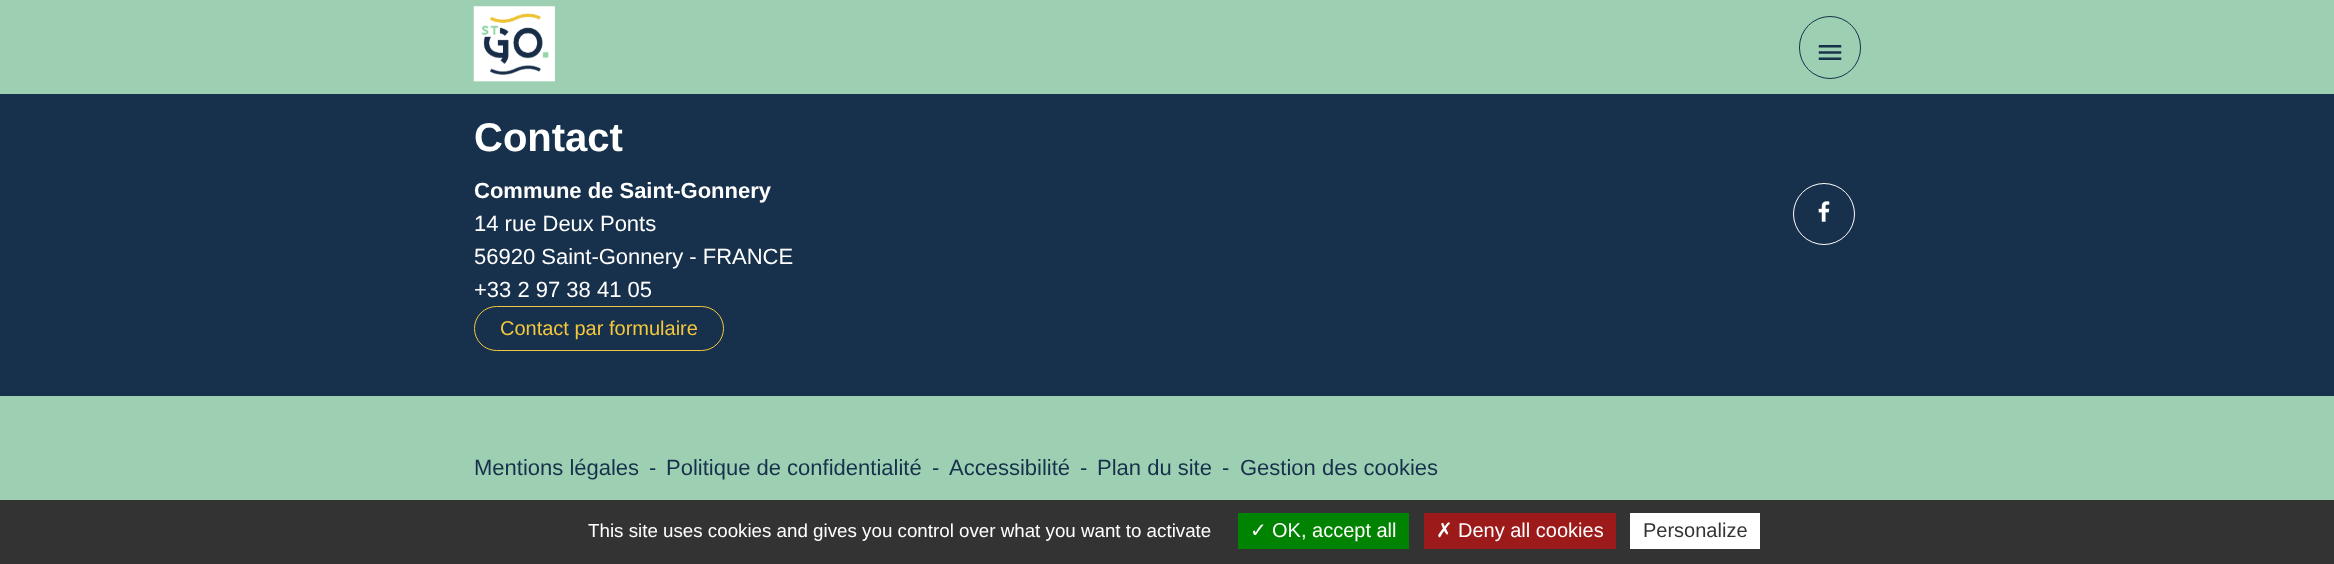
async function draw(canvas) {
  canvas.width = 2334;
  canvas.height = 564;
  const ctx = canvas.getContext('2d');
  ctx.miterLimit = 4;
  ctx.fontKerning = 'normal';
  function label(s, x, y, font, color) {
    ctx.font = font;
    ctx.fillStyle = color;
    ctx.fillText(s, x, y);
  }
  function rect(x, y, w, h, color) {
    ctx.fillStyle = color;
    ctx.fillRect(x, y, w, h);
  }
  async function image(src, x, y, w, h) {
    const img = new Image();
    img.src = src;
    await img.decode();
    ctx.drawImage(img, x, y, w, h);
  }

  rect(0, 0, 2334, 564, '#9dd0b2');
  await image('assets/img1.png', 473, 6, 82, 76);
  ctx.beginPath();
  ctx.roundRect(1799.5, 16.5, 61, 62, 30.5);
  ctx.strokeStyle = '#17304b';
  ctx.stroke();
  await image('assets/img2.png', 1818, 45, 24, 15);
  rect(0, 94, 2334, 302, '#17304b');
  label('Contact', 474, 151, 'bold 40px Liberation Sans', '#fff');
  label('Commune de Saint-Gonnery', 474, 198, 'bold 22px Liberation Sans', '#fff');
  label('14 rue Deux Ponts', 474, 231, '22px Liberation Sans', '#fff');
  label('56920 Saint-Gonnery - FRANCE', 474, 264, '22px Liberation Sans', '#fff');
  label('+33 2 97 38 41 05', 474, 297, '22px Liberation Sans', '#fff');
  ctx.beginPath();
  ctx.roundRect(474.5, 306.5, 249, 44, 22);
  ctx.strokeStyle = '#f3c83e';
  ctx.stroke();
  label('Contact par formulaire', 500, 335, '20px Liberation Sans', '#f3c83e');
  ctx.beginPath();
  ctx.arc(1824, 214, 30.5, 0, 2 * Math.PI);
  ctx.strokeStyle = '#fff';
  ctx.stroke();
  await image('assets/img3.png', 1818, 201, 12, 21);
  label('Mentions légales', 474, 475, '22px Liberation Sans', '#17304b');
  label('-', 649, 475, '22px Liberation Sans', '#17304b');
  label('Politique de confidentialité', 666, 475, '22px Liberation Sans', '#17304b');
  label('-', 932, 475, '22px Liberation Sans', '#17304b');
  label('Accessibilité', 949, 475, '22px Liberation Sans', '#17304b');
  label('-', 1080, 475, '22px Liberation Sans', '#17304b');
  label('Plan du site', 1097, 475, '22px Liberation Sans', '#17304b');
  label('-', 1222, 475, '22px Liberation Sans', '#17304b');
  label('Gestion des cookies', 1240, 475, '22px Liberation Sans', '#17304b');
  rect(0, 500, 2334, 64, '#333');
  label('This site uses cookies and gives you control over what you want to activate', 588, 537, '18.75px Liberation Sans', '#fff');
  rect(1238, 513, 171, 36, '#008300');
  label('✓', 1250, 537, '20px DejaVu Sans', '#fff');
  label('OK, accept all', 1272, 537, '20px Liberation Sans', '#fff');
  rect(1424, 513, 192, 36, '#9c1a1a');
  label('✗', 1436, 537, '20px DejaVu Sans', '#fff');
  label('Deny all cookies', 1458, 537, '20px Liberation Sans', '#fff');
  rect(1630, 513, 130, 36, '#fff');
  label('Personalize', 1643, 537, '20px Liberation Sans', '#333');
}

draw(document.querySelector('canvas'));
